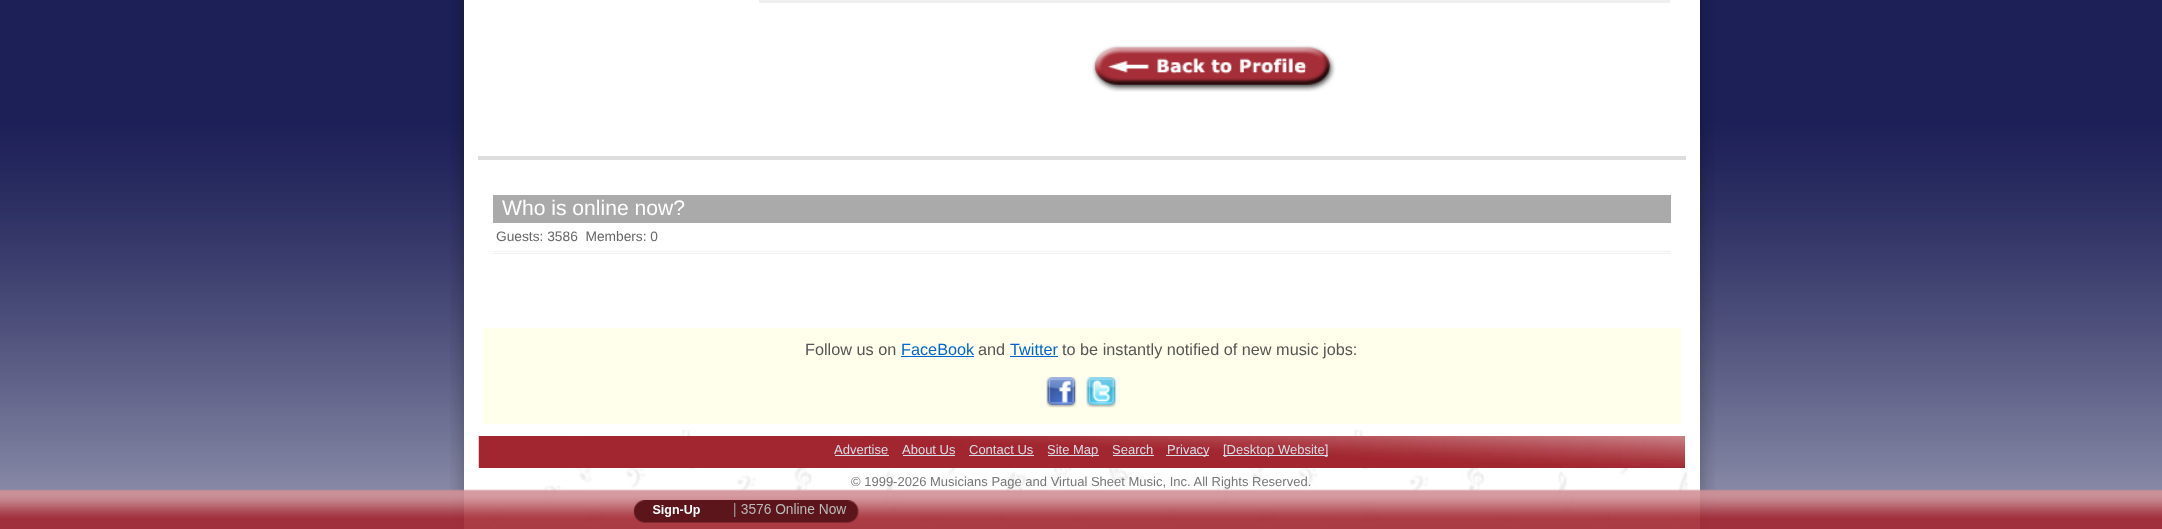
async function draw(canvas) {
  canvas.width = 2162;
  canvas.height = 529;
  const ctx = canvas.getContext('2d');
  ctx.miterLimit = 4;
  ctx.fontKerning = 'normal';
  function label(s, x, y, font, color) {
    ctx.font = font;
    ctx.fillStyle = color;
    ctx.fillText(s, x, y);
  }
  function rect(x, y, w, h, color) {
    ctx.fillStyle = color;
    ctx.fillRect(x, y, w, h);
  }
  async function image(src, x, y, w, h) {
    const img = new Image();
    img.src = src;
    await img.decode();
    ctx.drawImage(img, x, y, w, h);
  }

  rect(0, 0, 2162, 529, '#fff');
  await image('assets/img1.png', 0, 0, 2162, 529);
  await image('assets/img2.png', 450, 0, 1265, 529);
  rect(464, 0, 1236, 529, '#fff');
  rect(478, 156, 1208, 4, '#ddd');
  rect(759, 0, 911, 3, '#efefef');
  await image('assets/img3.png', 1092, 45, 244, 47);
  rect(493, 195, 1178, 28, '#aaa');
  label('Who is online now?', 502, 215, '21.1px Liberation Sans', '#fff');
  label('Guests: 3586  Members: 0', 496, 241, '13.75px Liberation Sans', '#666');
  rect(493, 253, 1178, 1, '#f1f1f1');
  rect(493, 251, 1178, 1, '#f1f1f1');
  rect(483, 328, 1198, 96, '#ffffeb');
  label('Follow us on', 805, 355, '16.25px Liberation Sans', '#555');
  label('FaceBook', 901, 355, '16.25px Liberation Sans', '#06c');
  rect(901, 356, 73, 1, '#06c');
  label('and', 978, 355, '16.25px Liberation Sans', '#555');
  label('Twitter', 1010, 355, '16.25px Liberation Sans', '#06c');
  rect(1010, 356, 48, 1, '#06c');
  label('to be instantly notified of new music jobs:', 1062, 355, '16.25px Liberation Sans', '#555');
  await image('assets/img4.png', 1046, 377, 31, 31);
  await image('assets/img5.png', 1086, 377, 31, 31);
  await image('assets/img6.png', 489, 430, 1199, 94);
  rect(479, 467, 1206, 1, '#a22630');
  await image('assets/img7.png', 478, 436, 1207, 32);
  label('Advertise', 834, 454, '13px Liberation Sans', '#d7deea');
  rect(835, 455, 54, 1, '#d7deea');
  label('About Us', 902, 454, '13px Liberation Sans', '#d7deea');
  rect(903, 455, 52, 1, '#d7deea');
  label('Contact Us', 969, 454, '13px Liberation Sans', '#d7deea');
  rect(969, 455, 65, 1, '#d7deea');
  rect(1048, 455, 51, 1, '#d7deea');
  label('Site Map', 1047, 454, '13px Liberation Sans', '#d7deea');
  label('Search', 1112, 454, '13px Liberation Sans', '#d7deea');
  rect(1113, 455, 41, 1, '#d7deea');
  rect(1166, 455, 43, 1, '#d7deea');
  label('Privacy', 1167, 454, '13px Liberation Sans', '#d7deea');
  rect(1223, 455, 105, 1, '#d7deea');
  label('[Desktop Website]', 1223, 454, '13px Liberation Sans', '#d7deea');
  label('© 1999-2026 Musicians Page and Virtual Sheet Music, Inc. All Rights Reserved.', 851, 486, '13px Liberation Sans', '#777');
  await image('assets/img8.png', 0, 489, 2162, 40);
  await image('assets/img9.png', 633, 500, 226, 23);
}

draw(document.querySelector('canvas'));
